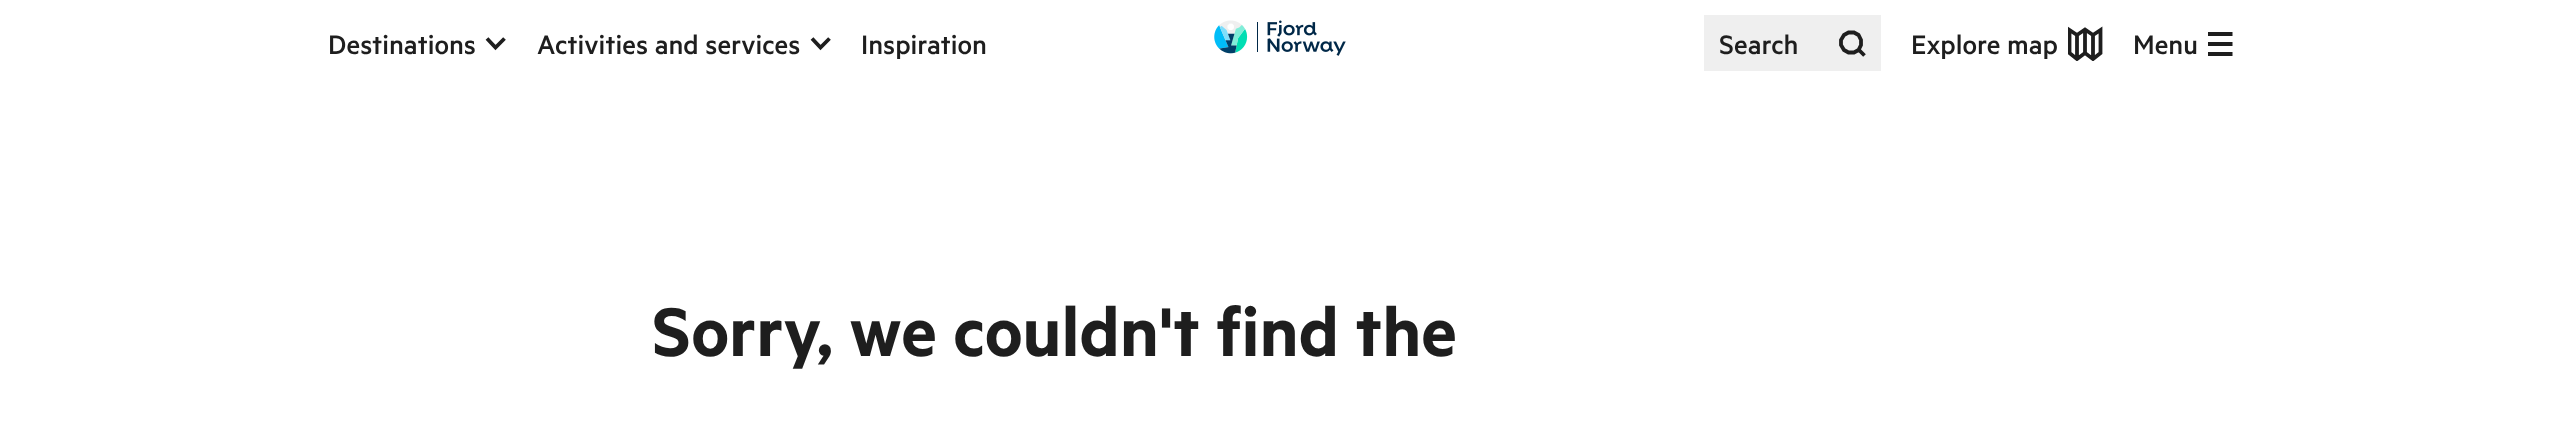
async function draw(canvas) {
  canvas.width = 2560;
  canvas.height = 422;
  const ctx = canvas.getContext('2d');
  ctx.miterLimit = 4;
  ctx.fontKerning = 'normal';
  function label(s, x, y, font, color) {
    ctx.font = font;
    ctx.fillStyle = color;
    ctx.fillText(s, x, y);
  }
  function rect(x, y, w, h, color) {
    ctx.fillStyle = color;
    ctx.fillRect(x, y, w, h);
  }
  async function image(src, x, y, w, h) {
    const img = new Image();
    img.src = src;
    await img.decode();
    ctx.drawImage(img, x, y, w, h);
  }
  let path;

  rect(0, 0, 2560, 422, '#fff');
  label('Destinations', 328, 54, '500 30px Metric', '#1e1e1e');
  path = new Path2D('M487 38.5L495.5 47.5L504.5 38.5');
  ctx.strokeStyle = '#1e1e1e';
  ctx.lineWidth = 3.8;
  ctx.stroke(path);
  label('Activities and services', 537, 54, '500 30px Metric', '#1e1e1e');
  path = new Path2D('M812 38.5L820.5 47.5L829.5 38.5');
  ctx.stroke(path);
  label('Inspiration', 861, 54, '500 30px Metric', '#1e1e1e');
  await image('assets/img1.png', 1214, 20, 132, 36);
  rect(1704, 15, 177, 56, '#efefef');
  label('Search', 1719, 54, '500 30px Metric', '#1e1e1e');
  path = new Path2D('M1854 32.5H1848.5L1844 35L1841 40V45L1844 50L1848.5 52.5H1854L1858.5 50L1861 45V40L1858.5 35ZM1859 50L1864.5 55.5');
  ctx.stroke(path);
  label('Explore map', 1911, 54, '500 30px Metric', '#1e1e1e');
  ctx.save();
  ctx.beginPath();
  ctx.rect(2068, 26, 35, 35);
  ctx.clip();
  path = new Path2D('M2069.5 53V30L2077 35L2085 29.5L2093 35L2100.5 30V53L2093 59L2085 53L2077 59ZM2085 29.5V53M2093 35V59M2077 35V59');
  ctx.stroke(path);
  ctx.restore();
  label('Menu', 2133, 54, '500 30px Metric', '#1e1e1e');
  ctx.save();
  ctx.beginPath();
  ctx.rect(2208, 31, 25, 25);
  ctx.clip();
  path = new Path2D('M2207.5 54H2232.5M2207.5 44H2232.5M2207.5 34H2232.5');
  ctx.stroke(path);
  ctx.restore();
  label('Sorry, we couldn\'t find the', 652, 356, '600 77.5px Metric', '#1e1e1e');
}

draw(document.querySelector('canvas'));
